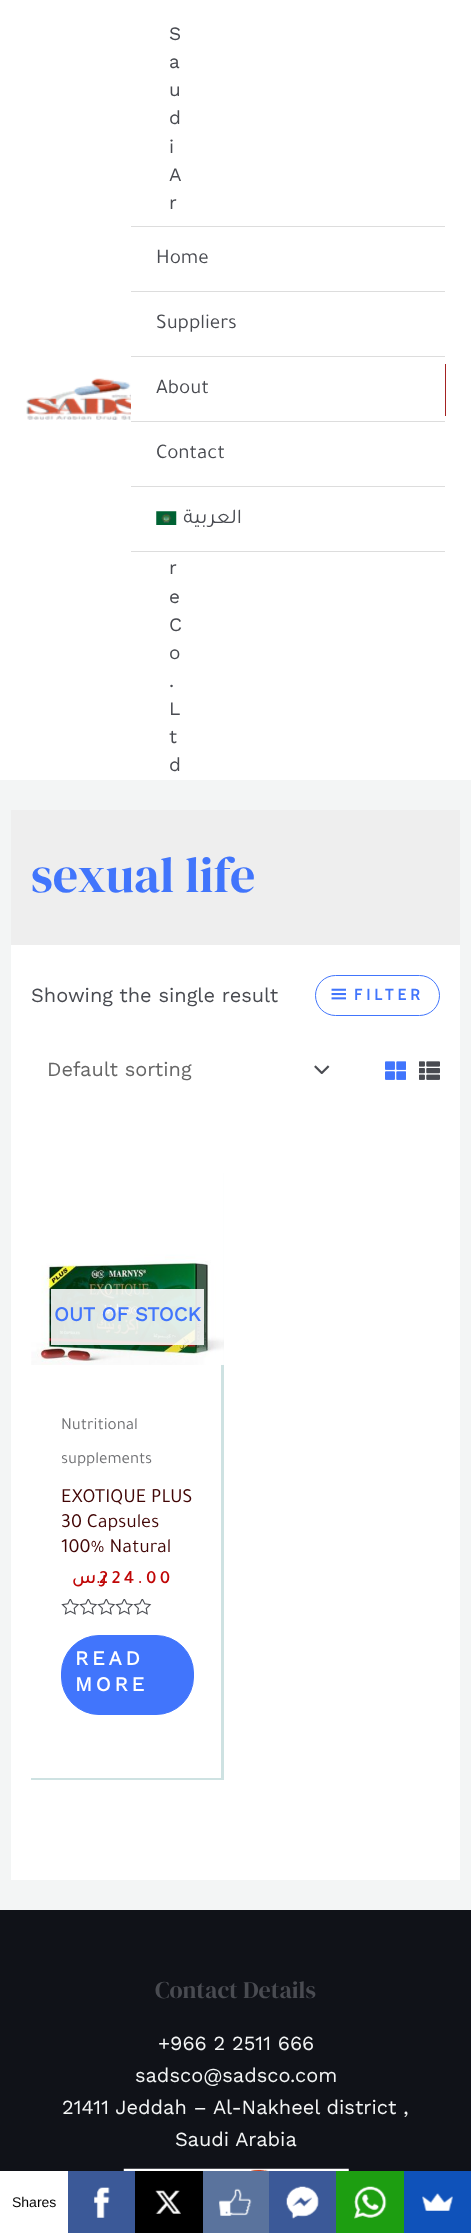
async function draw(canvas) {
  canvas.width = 471;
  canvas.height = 2233;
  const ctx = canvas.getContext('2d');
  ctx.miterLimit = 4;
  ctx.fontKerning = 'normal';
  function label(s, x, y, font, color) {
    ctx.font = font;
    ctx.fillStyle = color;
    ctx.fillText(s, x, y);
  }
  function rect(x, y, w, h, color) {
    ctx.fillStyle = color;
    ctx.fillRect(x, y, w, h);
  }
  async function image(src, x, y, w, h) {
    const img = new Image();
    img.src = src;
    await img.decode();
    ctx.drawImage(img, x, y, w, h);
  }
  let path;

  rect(0, 0, 471, 2233, '#f3f5f5');
  rect(0, 0, 471, 780, '#fff');
  await image('assets/img1.png', 26, 378, 105, 42);
  label('S', 169, 40, '19px Work Sans', '#494b51');
  label('a', 169, 68, '19px Work Sans', '#494b51');
  label('u', 169, 96, '19px Work Sans', '#494b51');
  label('d', 169, 124, '19px Work Sans', '#494b51');
  label('i', 169, 153, '19px Work Sans', '#494b51');
  label('A', 169, 181, '19px Work Sans', '#494b51');
  label('r', 169, 209, '19px Work Sans', '#494b51');
  label('r', 169, 574, '19px Work Sans', '#494b51');
  label('e', 169, 603, '19px Work Sans', '#494b51');
  label('C', 169, 631, '19px Work Sans', '#494b51');
  label('o', 169, 659, '19px Work Sans', '#494b51');
  label('.', 169, 687, '19px Work Sans', '#494b51');
  label('L', 169, 715, '19px Work Sans', '#494b51');
  label('t', 169, 743, '19px Work Sans', '#494b51');
  label('d', 169, 771, '19px Work Sans', '#494b51');
  rect(131, 226, 314, 1, '#ddd');
  rect(131, 291, 314, 1, '#ddd');
  label('Home', 156, 263, '21px Tajawal', '#494b51');
  rect(131, 356, 314, 1, '#ddd');
  label('Suppliers', 156, 328, '21px Tajawal', '#494b51');
  rect(131, 421, 314, 1, '#ddd');
  label('About', 156, 393, '21px Tajawal', '#494b51');
  rect(131, 486, 314, 1, '#ddd');
  label('Contact', 156, 458, '21px Tajawal', '#494b51');
  rect(131, 551, 314, 1, '#ddd');
  await image('assets/img2.png', 156, 511, 21, 14);
  ctx.direction = 'rtl';
  label('العربية', 242, 523, '21px Tajawal', '#494b51');
  rect(445, 364, 1, 52, '#a42222');
  rect(11, 810, 449, 135, '#eee');
  ctx.direction = 'ltr';
  label('sexual life', 31, 892, '50px DM Serif Display', '#4175fc');
  rect(11, 945, 449, 935, '#fff');
  label('Showing the single result', 31, 1002, '20px Work Sans', '#494b51');
  ctx.beginPath();
  ctx.roundRect(315.5, 975.5, 124, 40, 20);
  ctx.strokeStyle = '#4175fc';
  ctx.stroke();
  await image('assets/img3.png', 331, 988, 15, 12);
  ctx.letterSpacing = '3.75px';
  label('FILTER', 354, 1000, '600 16px Cabin', '#4175fc');
  await image('assets/img4.png', 314, 1065, 16, 9);
  ctx.letterSpacing = '0px';
  label('Default sorting', 47, 1076, '20px Work Sans', '#666');
  await image('assets/img5.png', 385, 1061, 21, 19);
  await image('assets/img6.png', 419, 1061, 21, 19);
  ctx.save();
  ctx.beginPath();
  ctx.rect(31, 1173, 193, 607);
  ctx.clip();
  ctx.fillStyle = '#cee2e2';
  path = new Path2D('M-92 1049H348V1904H-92ZM29 1170H221V1778H29Z');
  ctx.fill(path, 'evenodd');
  ctx.restore();
  await image('assets/img7.png', 31, 1173, 193, 192);
  rect(51, 1289, 153, 56, '#ffffffe0');
  label('OUT OF STOCK', 54, 1321, 'bold 20px Work Sans', '#4175fc');
  label('Nutritional', 61, 1429, '17px Tajawal', '#707174');
  label('supplements', 61, 1463, '17px Tajawal', '#707174');
  label('EXOTIQUE PLUS', 61, 1502, '20px Tajawal', '#410505');
  label('30 Capsules', 61, 1527, '20px Tajawal', '#410505');
  label('100% Natural', 61, 1552, '20px Tajawal', '#410505');
  ctx.letterSpacing = '3.75px';
  label('224.00', 99, 1583, 'bold 18px Tajawal', '#c00707');
  ctx.direction = 'rtl';
  label('ر.س', 106, 1583, 'bold 18px Tajawal', '#c00707');
  await image('assets/img8.png', 61, 1599, 91, 16);
  ctx.fillStyle = '#4175fc';
  ctx.beginPath();
  ctx.roundRect(61.5, 1635.5, 132, 79, 37.5);
  ctx.fill();
  ctx.stroke();
  ctx.direction = 'ltr';
  label('READ', 75, 1665, 'bold 20px Work Sans', '#fff');
  label('MORE', 75, 1691, 'bold 20px Work Sans', '#fff');
  rect(0, 1910, 471, 261, '#101218');
  ctx.letterSpacing = '0px';
  label('Contact Details', 155, 1998, '24px DM Serif Display', '#494b51');
  label('+966 2 2511 666', 158, 2050, '20px Work Sans', '#f3f5f5');
  label('sadsco@sadsco.com', 135, 2082, '20px Work Sans', '#f3f5f5');
  label('21411 Jeddah – Al-Nakheel district ,', 62, 2114, '20px Work Sans', '#f3f5f5');
  label('Saudi Arabia', 175, 2146, '20px Work Sans', '#f3f5f5');
  await image('assets/img9.png', 123, 2168, 226, 3);
  rect(0, 2171, 68, 62, '#fff');
  label('Shares', 12, 2207, '14px Liberation Sans', '#000');
  rect(68, 2171, 67, 62, '#3b5998');
  await image('assets/img10.png', 94, 2187, 16, 31);
  rect(135, 2171, 68, 62, '#000');
  await image('assets/img11.png', 155, 2190, 26, 24);
  rect(203, 2171, 66, 62, '#5a739d');
  await image('assets/img12.png', 219, 2188, 33, 28);
  rect(269, 2171, 67, 62, '#3b5998');
  await image('assets/img13.png', 286, 2186, 33, 33);
  rect(336, 2171, 68, 62, '#1d9e11');
  await image('assets/img14.png', 354, 2186, 33, 33);
  rect(404, 2171, 67, 62, '#0f52ba');
  await image('assets/img15.png', 422, 2193, 31, 18);
}

draw(document.querySelector('canvas'));
